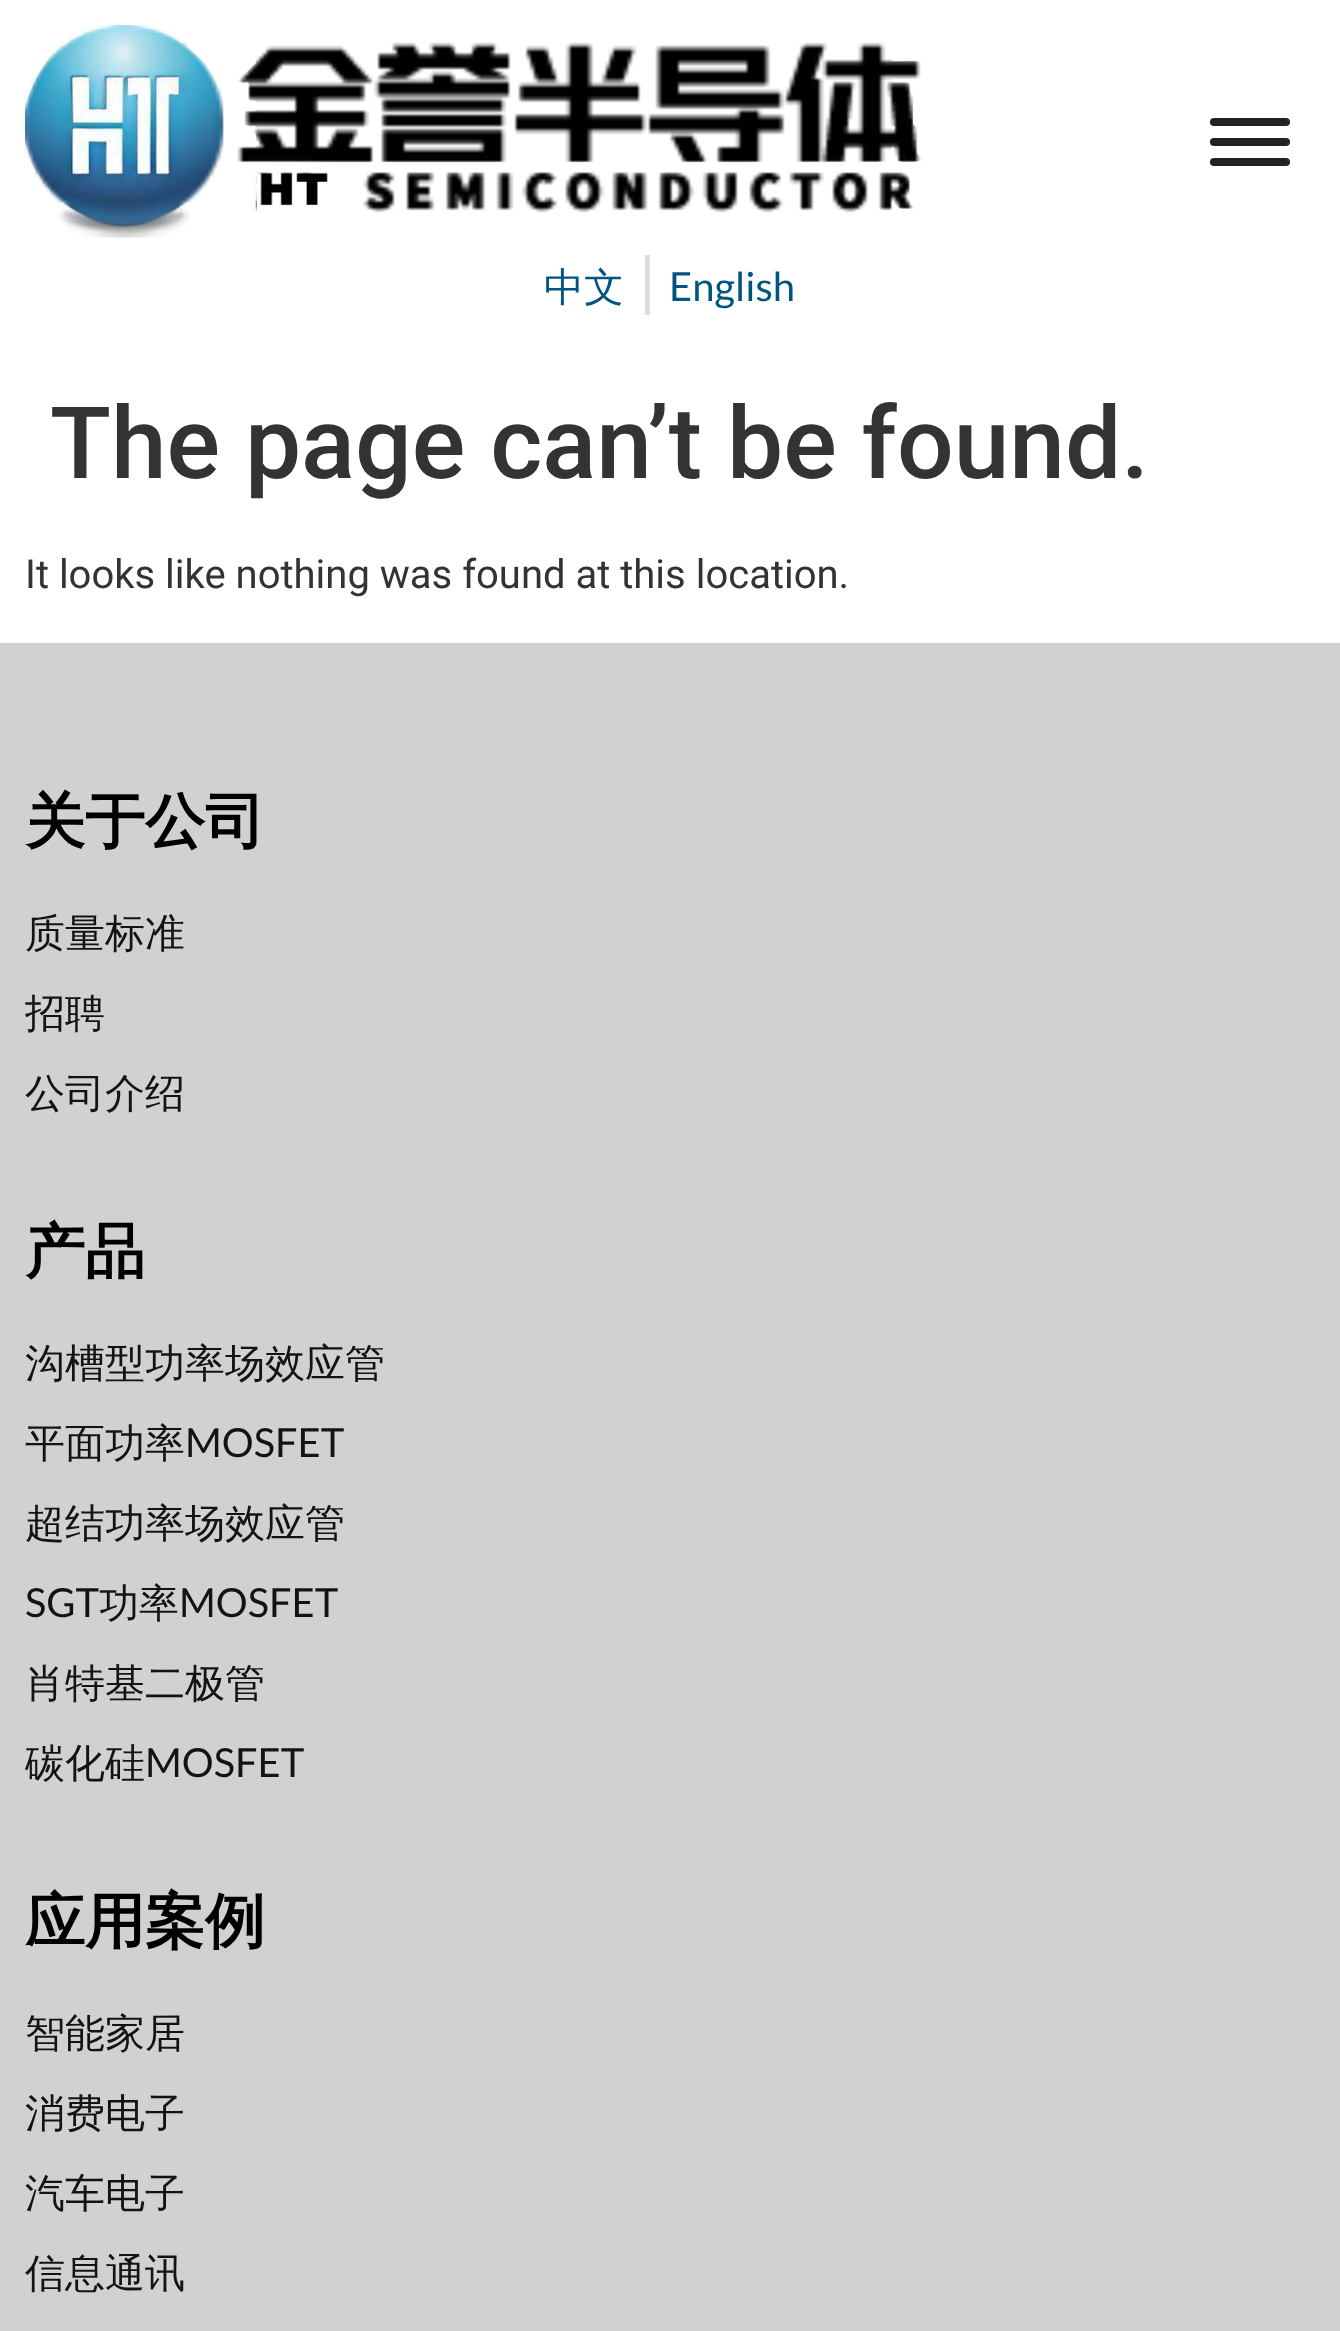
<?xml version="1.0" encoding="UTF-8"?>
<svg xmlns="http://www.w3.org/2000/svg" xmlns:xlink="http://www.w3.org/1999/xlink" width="1340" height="2331">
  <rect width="100%" height="100%" fill="#ffffff" />
  <image x="25" y="25" width="896" height="213" xlink:href="image1.png" />
  <rect x="1210" y="118" width="80" height="8" rx="4" fill="#222222" />
  <rect x="1210" y="138" width="80" height="8" rx="4" fill="#222222" />
  <rect x="1210" y="158" width="80" height="8" rx="4" fill="#222222" />
  <rect x="645" y="255" width="5" height="60" fill="#dddddd" />
  <rect y="643" width="1340" height="1688" fill="#d1d1d1" />
  <text x="544" y="301" style="font-family: WenQuanYi Zen Hei; font-size: 40px; font-weight: 500; fill: #005480">中文</text>
  <text x="669" y="301" style="font-family: Lato; font-size: 40px; fill: #005480">English</text>
  <text x="50" y="478" style="font-family: Roboto; font-size: 100px; font-weight: 500; fill: #333333">The page can’t be found.</text>
  <text x="25" y="588" style="font-family: Roboto; font-size: 40px; fill: #333333">It looks like nothing was found at this location.</text>
  <text x="25" y="842" style="font-family: WenQuanYi Zen Hei; font-size: 60px; font-weight: bold; fill: #000000">关于公司</text>
  <text x="25" y="947" style="font-family: WenQuanYi Zen Hei; font-size: 40px; font-weight: 500; fill: #131313">质量标准</text>
  <text x="25" y="1027" style="font-family: WenQuanYi Zen Hei; font-size: 40px; font-weight: 500; fill: #131313">招聘</text>
  <text x="25" y="1107" style="font-family: WenQuanYi Zen Hei; font-size: 40px; font-weight: 500; fill: #131313">公司介绍</text>
  <text x="25" y="1272" style="font-family: WenQuanYi Zen Hei; font-size: 60px; font-weight: bold; fill: #000000">产品</text>
  <text x="25" y="1377" style="font-family: WenQuanYi Zen Hei; font-size: 40px; font-weight: 500; fill: #131313">沟槽型功率场效应管</text>
  <text x="25" y="1457" style="font-family: WenQuanYi Zen Hei; font-size: 40px; font-weight: 500; fill: #131313">平面功率</text>
  <text x="185" y="1457" style="font-family: Lato; font-size: 40px; fill: #131313">MOSFET</text>
  <text x="25" y="1537" style="font-family: WenQuanYi Zen Hei; font-size: 40px; font-weight: 500; fill: #131313">超结功率场效应管</text>
  <text x="25" y="1617" style="font-family: Lato; font-size: 40px; fill: #131313">SGT</text>
  <text x="99" y="1617" style="font-family: WenQuanYi Zen Hei; font-size: 40px; font-weight: 500; fill: #131313">功率</text>
  <text x="179" y="1617" style="font-family: Lato; font-size: 40px; fill: #131313">MOSFET</text>
  <text x="25" y="1697" style="font-family: WenQuanYi Zen Hei; font-size: 40px; font-weight: 500; fill: #131313">肖特基二极管</text>
  <text x="25" y="1777" style="font-family: WenQuanYi Zen Hei; font-size: 40px; font-weight: 500; fill: #131313">碳化硅</text>
  <text x="145" y="1777" style="font-family: Lato; font-size: 40px; fill: #131313">MOSFET</text>
  <text x="25" y="1942" style="font-family: WenQuanYi Zen Hei; font-size: 60px; font-weight: bold; fill: #000000">应用案例</text>
  <text x="25" y="2047" style="font-family: WenQuanYi Zen Hei; font-size: 40px; font-weight: 500; fill: #131313">智能家居</text>
  <text x="25" y="2127" style="font-family: WenQuanYi Zen Hei; font-size: 40px; font-weight: 500; fill: #131313">消费电子</text>
  <text x="25" y="2207" style="font-family: WenQuanYi Zen Hei; font-size: 40px; font-weight: 500; fill: #131313">汽车电子</text>
  <text x="25" y="2287" style="font-family: WenQuanYi Zen Hei; font-size: 40px; font-weight: 500; fill: #131313">信息通讯</text>
</svg>
